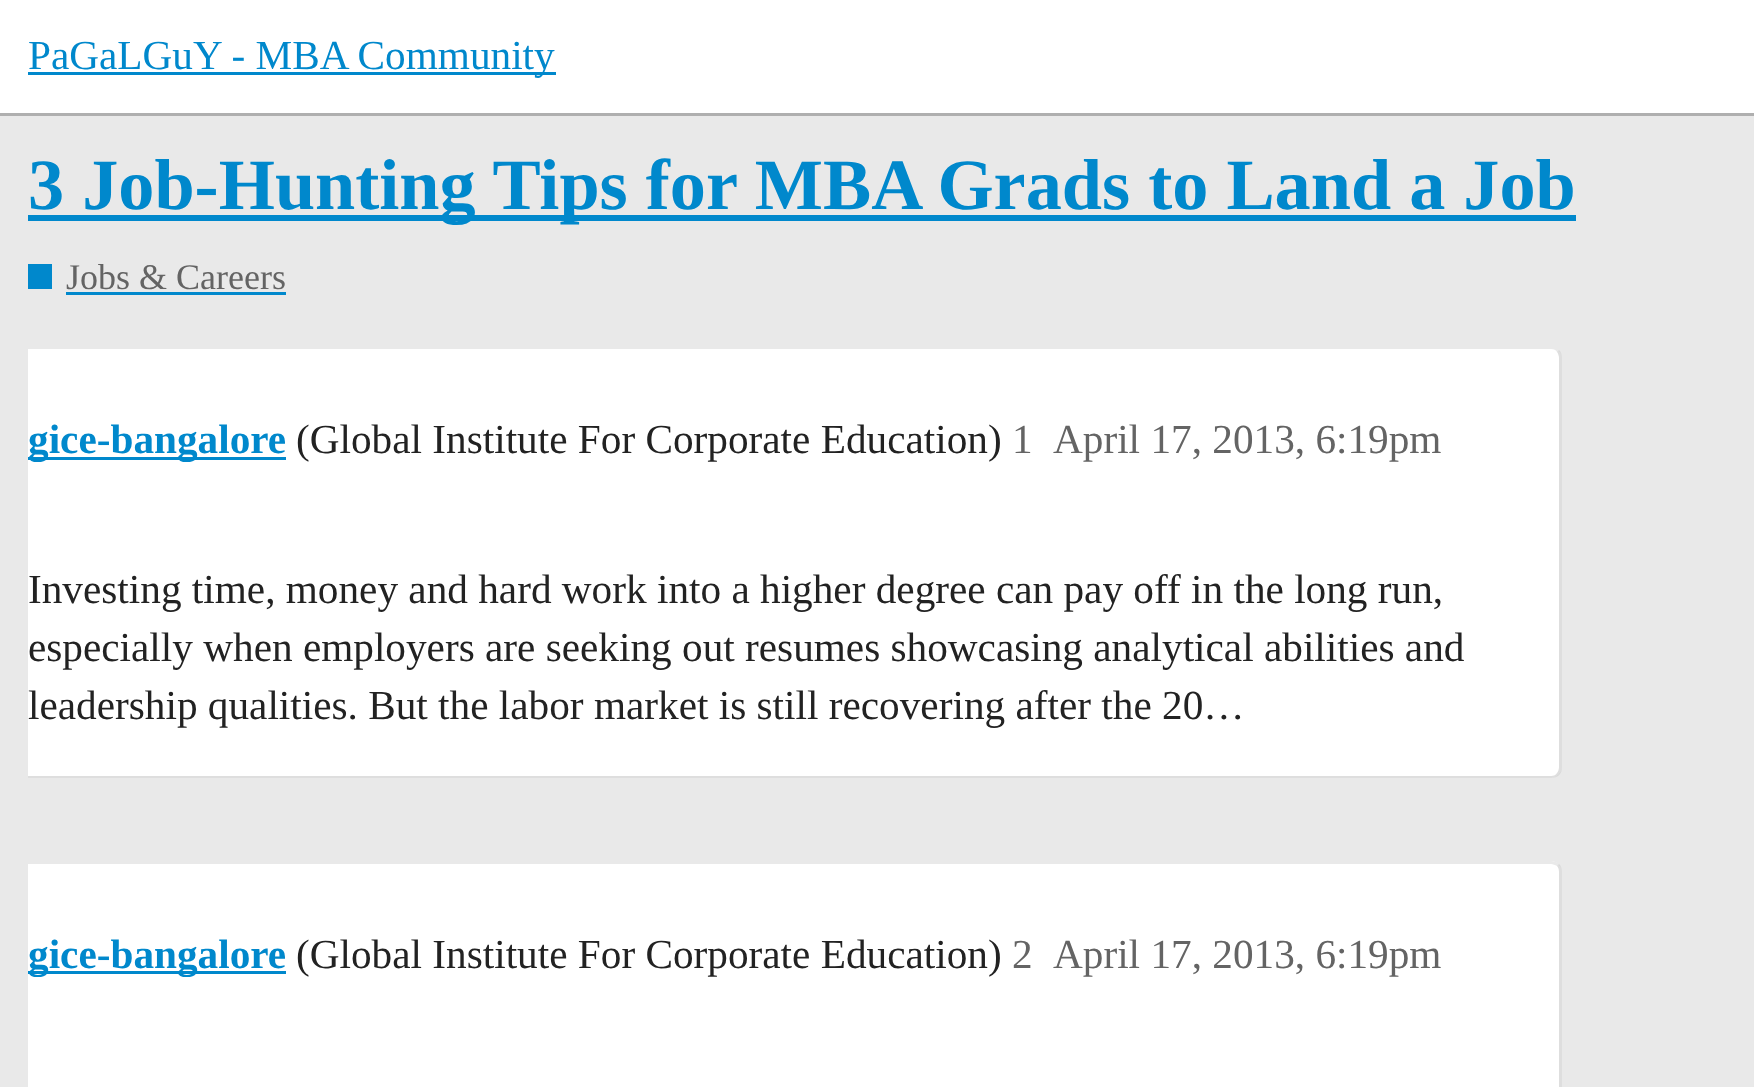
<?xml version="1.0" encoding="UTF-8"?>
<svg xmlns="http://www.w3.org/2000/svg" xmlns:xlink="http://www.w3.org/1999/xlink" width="1754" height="1087">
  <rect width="100%" height="100%" fill="#e9e9e9" />
  <rect width="1754" height="113" fill="#ffffff" />
  <rect y="113" width="1754" height="3" fill="#afafaf" />
  <rect x="28" y="72" width="528" height="3" fill="#0088cc" />
  <rect x="28" y="215" width="1548" height="6" fill="#0088cc" />
  <rect x="28" y="264" width="24" height="25" fill="#0088cc" />
  <rect x="66" y="292" width="220" height="3" fill="#0088cc" />
  <path d="M 28 347 h 1523 c 6 0 11 5 11 11 v 409 c 0 6 -5 11 -11 11 h -1523 z" fill="#ffffff" />
  <path d="M 28 349 v -3 h 1526 c 2 1 4 2 5 4 l -2 2 c -1 -2 -3 -3 -6 -3 z" fill="#e9e9e9" />
  <path d="M 1557 773 c 1 -1 2 -4 2 -6 v -409 c 0 -2 -1 -5 -2 -6 l 2 -2 c 2 2 3 5 3 8 v 409 c 0 3 -1 6 -3 8 z" fill="#222222" fill-opacity="0.15" />
  <path d="M 1559 775 l -2 -2 c -1 2 -3 3 -6 3 h -1523 v 2 h 1523 c 3 0 6 -1 8 -3 z" fill="#222222" fill-opacity="0.15" />
  <rect x="28" y="457" width="258" height="3" fill="#0088cc" />
  <path d="M 28 861 h 1523 c 6 0 11 5 11 11 v 215 c 0 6 -5 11 -11 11 h -1523 z" fill="#ffffff" />
  <path d="M 28 861 h 1523 c 3 0 6 1 8 3 l -2 2 c -2 -1 -4 -2 -6 -2 h -1523 z" fill="#e9e9e9" />
  <path d="M 1559 864 c 2 2 3 5 3 8 v 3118 c 0 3 -1 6 -3 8 l -2 -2 c 1 -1 2 -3 2 -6 v -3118 c 0 -3 -1 -5 -2 -6 z" fill="#222222" fill-opacity="0.15" />
  <rect x="28" y="971" width="258" height="3" fill="#0088cc" />
  <text x="28" y="69" style="font-family: Liberation Serif; font-size: 41.25px; fill: #0088cc">PaGaLGuY - MBA Community</text>
  <text x="28" y="209" style="font-family: Liberation Serif; font-size: 72.25px; font-weight: bold; fill: #0088cc">3 Job-Hunting Tips for MBA Grads to Land a Job</text>
  <text x="66" y="289" style="font-family: Liberation Serif; font-size: 36px; fill: #646464">Jobs &amp; Careers</text>
  <text x="28" y="453" style="font-family: Liberation Serif; font-size: 41.25px; font-weight: bold; fill: #0088cc">gice-bangalore</text>
  <text x="296" y="453" style="font-family: Liberation Serif; font-size: 41.25px; fill: #222222">(Global Institute For Corporate Education)</text>
  <text x="1012" y="453" style="font-family: Liberation Serif; font-size: 41.25px; fill: #646464">1</text>
  <text x="1053" y="453" style="font-family: Liberation Serif; font-size: 41.25px; fill: #646464">April 17, 2013, 6:19pm</text>
  <text x="28" y="603" style="font-family: Liberation Serif; font-size: 41.25px; fill: #222222">Investing time, money and hard work into a higher degree can pay off in the long run,</text>
  <text x="28" y="661" style="font-family: Liberation Serif; font-size: 41.25px; fill: #222222">especially when employers are seeking out resumes showcasing analytical abilities and</text>
  <text x="28" y="719" style="font-family: Liberation Serif; font-size: 41.25px; fill: #222222">leadership qualities. But the labor market is still recovering after the 20…</text>
  <text x="28" y="968" style="font-family: Liberation Serif; font-size: 41.25px; font-weight: bold; fill: #0088cc">gice-bangalore</text>
  <text x="296" y="968" style="font-family: Liberation Serif; font-size: 41.25px; fill: #222222">(Global Institute For Corporate Education)</text>
  <text x="1012" y="968" style="font-family: Liberation Serif; font-size: 41.25px; fill: #646464">2</text>
  <text x="1053" y="968" style="font-family: Liberation Serif; font-size: 41.25px; fill: #646464">April 17, 2013, 6:19pm</text>
</svg>
